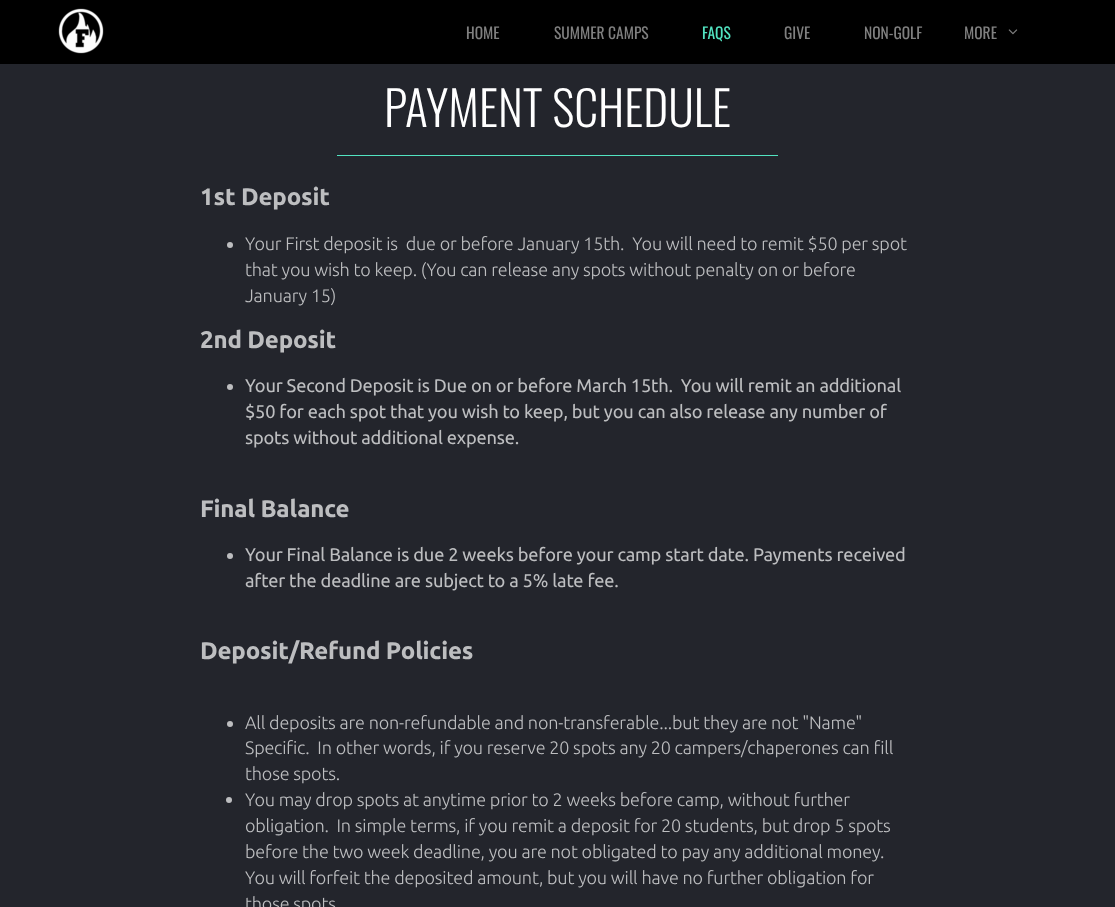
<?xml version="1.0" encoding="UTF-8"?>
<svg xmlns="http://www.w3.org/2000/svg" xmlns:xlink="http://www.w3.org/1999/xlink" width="1115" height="907">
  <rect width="100%" height="100%" fill="#23252c" />
  <rect width="1115" height="64" fill="#000000" />
  <image x="58" y="8" width="46" height="46" xlink:href="image1.png" />
  <image x="1008" y="29" width="10" height="6" xlink:href="image2.png" />
  <rect x="337" y="155" width="441" height="1" fill="#52e3c1" />
  <circle cx="230" cy="245" r="3" fill="#bdbec0" />
  <circle cx="230" cy="387" r="3" fill="#bdbec0" />
  <circle cx="230" cy="556" r="3" fill="#bdbec0" />
  <circle cx="230" cy="724" r="3" fill="#bdbec0" />
  <circle cx="229" cy="800" r="3" fill="#bdbec0" />
  <text x="466" y="39" style="font-family: Oswald; font-size: 15.5px; fill: #808080">HOME</text>
  <text x="554" y="39" style="font-family: Oswald; font-size: 15.5px; fill: #808080">SUMMER CAMPS</text>
  <text x="702" y="39" style="font-family: Oswald; font-size: 15.5px; fill: #52e3c1">FAQS</text>
  <text x="784" y="39" style="font-family: Oswald; font-size: 15.5px; fill: #808080">GIVE</text>
  <text x="864" y="39" style="font-family: Oswald; font-size: 15.5px; fill: #808080">NON-GOLF</text>
  <text x="964" y="39" style="font-family: Oswald; font-size: 15.5px; fill: #808080">MORE</text>
  <text x="384" y="127" style="font-family: Oswald; font-size: 47.75px; font-weight: 300; fill: #ffffff">PAYMENT SCHEDULE</text>
  <text x="200" y="205" style="font-family: Ubuntu; font-size: 24px; font-weight: bold; letter-spacing: -0.18px; fill: #bdbec0">1st Deposit</text>
  <text x="245" y="250" style="font-family: Ubuntu; font-size: 18px; font-weight: 300; letter-spacing: -0.18px; fill: #bdbec0" xml:space="preserve">Your First deposit is  due or before January 15th.  You will need to remit $50 per spot</text>
  <text x="245" y="276" style="font-family: Ubuntu; font-size: 18px; font-weight: 300; letter-spacing: -0.18px; fill: #bdbec0">that you wish to keep. (You can release any spots without penalty on or before</text>
  <text x="245" y="302" style="font-family: Ubuntu; font-size: 18px; font-weight: 300; letter-spacing: -0.18px; fill: #bdbec0">January 15)</text>
  <text x="200" y="348" style="font-family: Ubuntu; font-size: 24px; font-weight: bold; letter-spacing: -0.18px; fill: #bdbec0">2nd Deposit</text>
  <text x="245" y="392" style="font-family: Ubuntu; font-size: 18.25px; letter-spacing: -0.18px; fill: #bdbec0" xml:space="preserve">Your Second Deposit is Due on or before March 15th.  You will remit an additional</text>
  <text x="245" y="418" style="font-family: Ubuntu; font-size: 18.25px; letter-spacing: -0.18px; fill: #bdbec0">$50 for each spot that you wish to keep, but you can also release any number of</text>
  <text x="245" y="444" style="font-family: Ubuntu; font-size: 18.25px; letter-spacing: -0.18px; fill: #bdbec0">spots without additional expense.</text>
  <text x="200" y="517" style="font-family: Ubuntu; font-size: 24px; font-weight: bold; letter-spacing: -0.18px; fill: #bdbec0">Final Balance</text>
  <text x="245" y="561" style="font-family: Ubuntu; font-size: 18.25px; letter-spacing: -0.18px; fill: #bdbec0">Your Final Balance is due 2 weeks before your camp start date. Payments received</text>
  <text x="245" y="587" style="font-family: Ubuntu; font-size: 18.25px; letter-spacing: -0.18px; fill: #bdbec0">after the deadline are subject to a 5% late fee.</text>
  <text x="200" y="659" style="font-family: Ubuntu; font-size: 24px; font-weight: bold; letter-spacing: -0.18px; fill: #bdbec0">Deposit/Refund Policies</text>
  <text x="245" y="729" style="font-family: Ubuntu; font-size: 18px; font-weight: 300; letter-spacing: -0.18px; fill: #bdbec0">All deposits are non-refundable and non-transferable...but they are not "Name"</text>
  <text x="245" y="754" style="font-family: Ubuntu; font-size: 18px; font-weight: 300; letter-spacing: -0.18px; fill: #bdbec0" xml:space="preserve">Specific.  In other words, if you reserve 20 spots any 20 campers/chaperones can fill</text>
  <text x="245" y="780" style="font-family: Ubuntu; font-size: 18px; font-weight: 300; letter-spacing: -0.18px; fill: #bdbec0">those spots.</text>
  <text x="245" y="806" style="font-family: Ubuntu; font-size: 18px; font-weight: 300; letter-spacing: -0.18px; fill: #bdbec0">You may drop spots at anytime prior to 2 weeks before camp, without further</text>
  <text x="245" y="832" style="font-family: Ubuntu; font-size: 18px; font-weight: 300; letter-spacing: -0.18px; fill: #bdbec0" xml:space="preserve">obligation.  In simple terms, if you remit a deposit for 20 students, but drop 5 spots</text>
  <text x="245" y="858" style="font-family: Ubuntu; font-size: 18px; font-weight: 300; letter-spacing: -0.18px; fill: #bdbec0">before the two week deadline, you are not obligated to pay any additional money.</text>
  <text x="245" y="884" style="font-family: Ubuntu; font-size: 18px; font-weight: 300; letter-spacing: -0.18px; fill: #bdbec0">You will forfeit the deposited amount, but you will have no further obligation for</text>
  <text x="245" y="910" style="font-family: Ubuntu; font-size: 18px; font-weight: 300; letter-spacing: -0.18px; fill: #bdbec0">those spots</text>
</svg>
